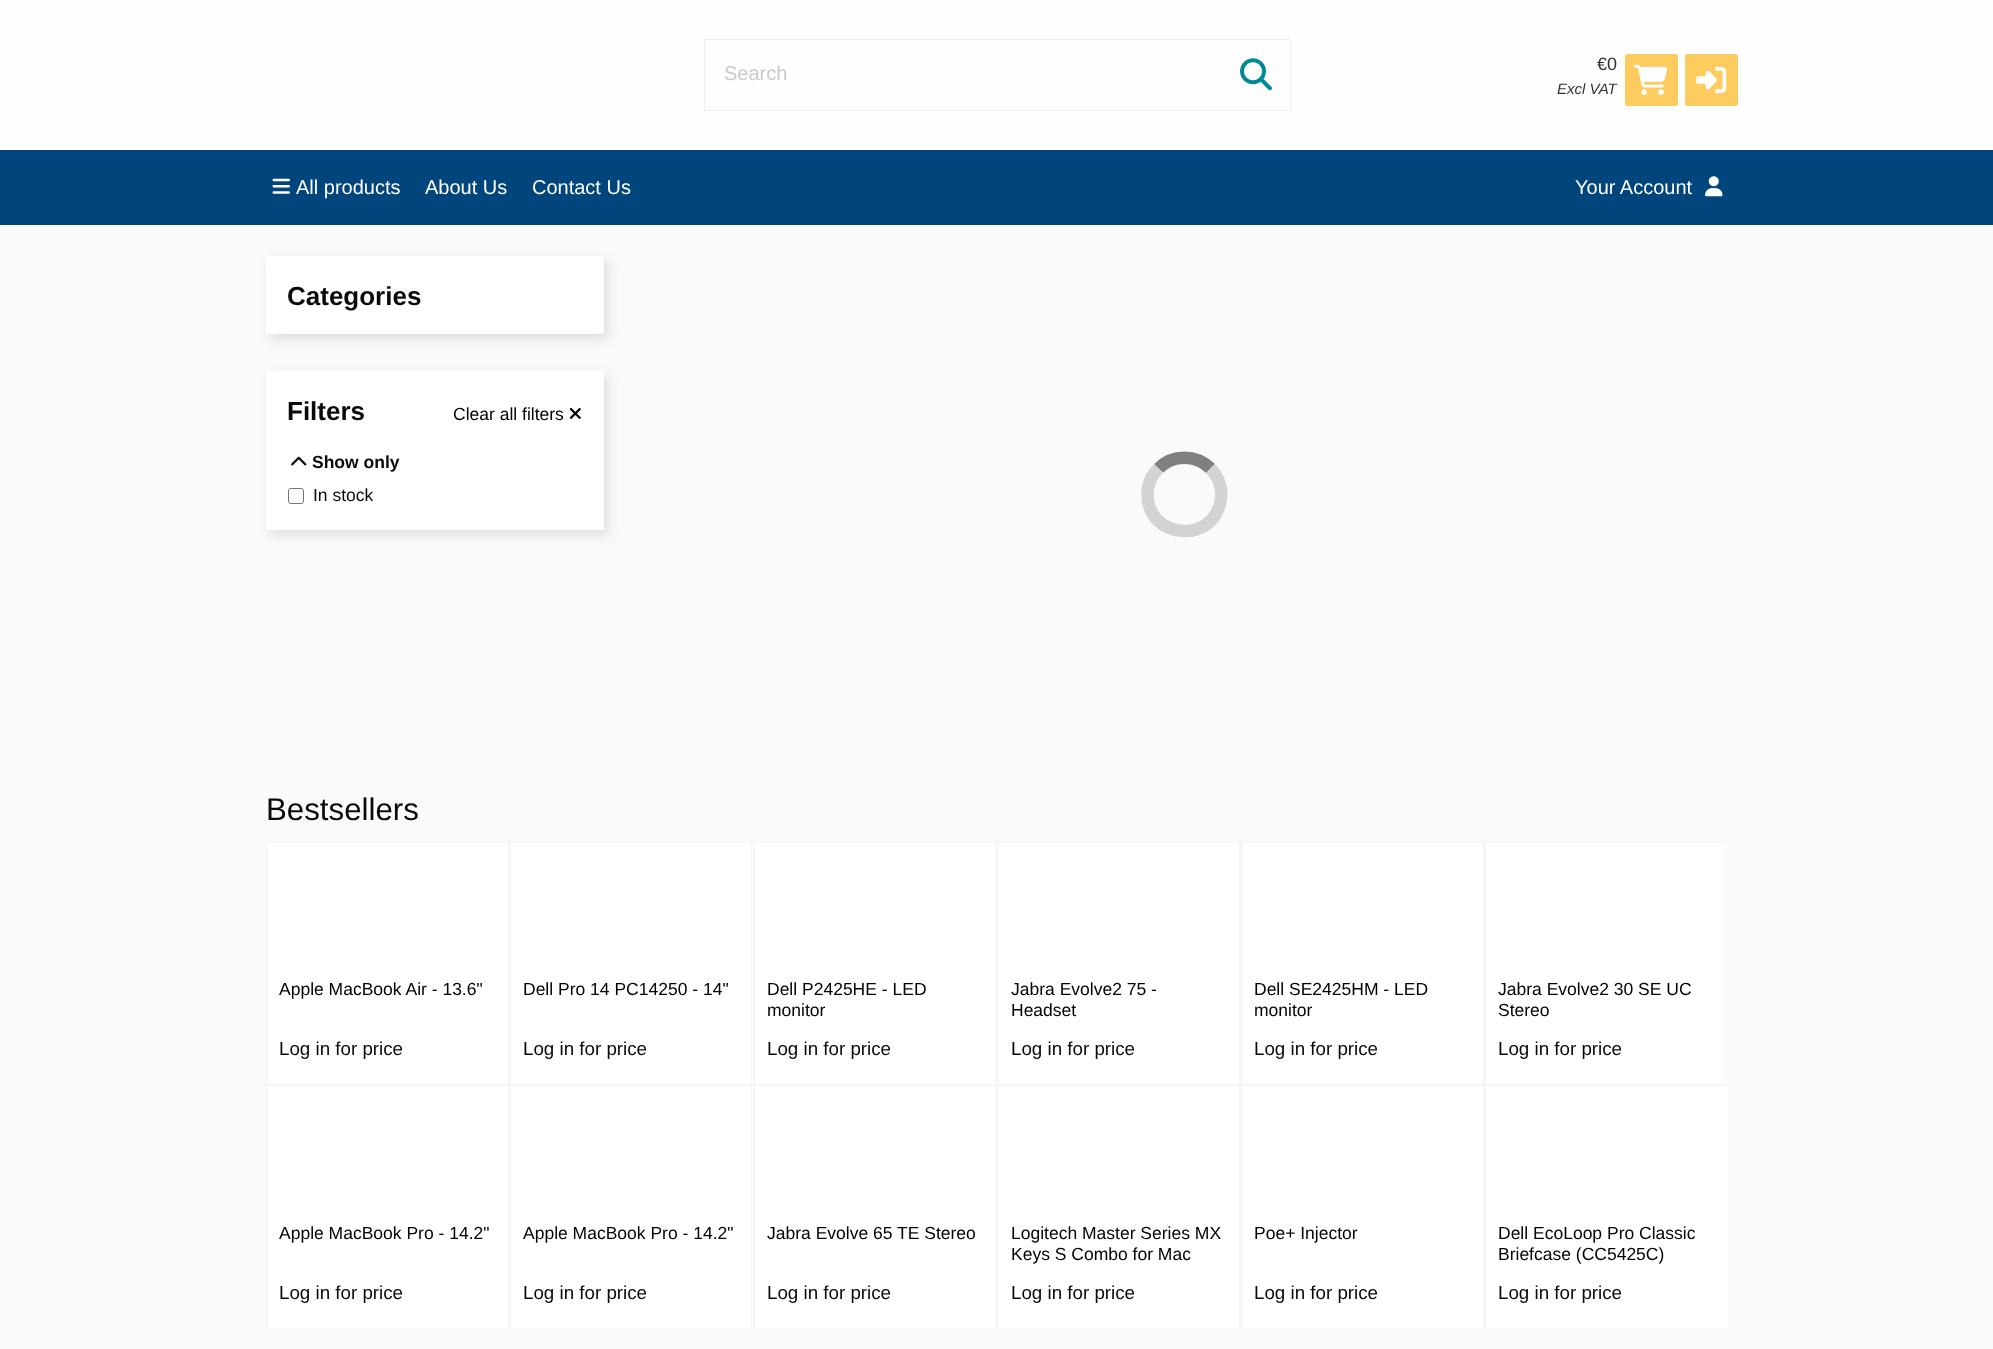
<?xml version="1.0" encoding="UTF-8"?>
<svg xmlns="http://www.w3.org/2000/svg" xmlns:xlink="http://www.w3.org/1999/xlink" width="1993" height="1349">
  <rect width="100%" height="100%" fill="#fafafa" />
  <rect width="1993" height="150" fill="#fefefe" />
  <rect x="704.5" y="39.5" width="586" height="71" fill="none" stroke="#eeeeee" />
  <image x="1240" y="58" width="32" height="33" xlink:href="image1.png" />
  <rect x="1625" y="54" width="53" height="52" rx="2.5" fill="#fecb5e" />
  <image x="1633" y="65" width="35" height="30" xlink:href="image2.png" />
  <rect x="1685" y="54" width="53" height="52" rx="2.5" fill="#fecb5e" />
  <image x="1696" y="66" width="31" height="28" xlink:href="image3.png" />
  <rect y="150" width="1993" height="75" fill="#00457b" />
  <image x="272" y="178" width="18" height="16" xlink:href="image4.png" />
  <image x="1705" y="176" width="18" height="21" xlink:href="image5.png" />
  <rect x="270" y="261" width="338" height="78" fill="#dddddd" filter="blur(5.5px)" />
  <rect x="266" y="256" width="338" height="78" fill="#ffffff" />
  <rect x="270" y="376" width="338" height="159" fill="#dddddd" filter="blur(5.5px)" />
  <rect x="266" y="371" width="338" height="159" fill="#ffffff" />
  <image x="569" y="408" width="12" height="11" xlink:href="image6.png" />
  <image x="291" y="456" width="16" height="10" xlink:href="image7.png" />
  <rect x="288.5" y="488.5" width="15" height="15" rx="2" fill="none" stroke="#767676" />
  <path d="M 1158.5 468.5 c 14 -14.5 37.5 -14.5 52 0" fill="none" stroke="#808080" stroke-width="12.5" />
  <path d="M 1210.5 468.5 c 8.5 8.5 12.5 21 10 33 c -8.5 43.5 -73 37 -73 -7 c 0 -10 4 -19.5 11 -26" fill="none" stroke="#d3d3d3" stroke-width="12.5" />
  <rect x="266.5" y="841.5" width="243" height="243" fill="none" stroke="#f5f5f5" />
  <rect x="268" y="843" width="240" height="241" fill="#ffffff" />
  <rect x="508" y="843" width="1" height="241" fill="#f5f5f5" />
  <rect x="510.5" y="841.5" width="243" height="243" fill="none" stroke="#f5f5f5" />
  <rect x="511" y="843" width="242" height="241" fill="#ffffff" />
  <rect x="751" y="843" width="1" height="241" fill="#f5f5f5" />
  <rect x="754.5" y="841.5" width="243" height="243" fill="none" stroke="#f5f5f5" />
  <rect x="755" y="843" width="240" height="241" fill="#ffffff" />
  <rect x="995" y="843" width="1" height="241" fill="#f5f5f5" />
  <rect x="998.5" y="841.5" width="242" height="243" fill="none" stroke="#f5f5f5" />
  <rect x="999" y="843" width="240" height="241" fill="#ffffff" />
  <rect x="1239" y="843" width="1" height="241" fill="#f5f5f5" />
  <rect x="1241.5" y="841.5" width="243" height="243" fill="none" stroke="#f5f5f5" />
  <rect x="1243" y="843" width="240" height="241" fill="#ffffff" />
  <rect x="1483" y="843" width="1" height="241" fill="#f5f5f5" />
  <rect x="1485.5" y="841.5" width="243" height="243" fill="none" stroke="#f5f5f5" />
  <rect x="1486" y="843" width="242" height="241" fill="#ffffff" />
  <rect x="1726" y="843" width="1" height="241" fill="#f5f5f5" />
  <rect x="266.5" y="1085.5" width="243" height="243" fill="none" stroke="#f5f5f5" />
  <rect x="268" y="1086" width="240" height="242" fill="#ffffff" />
  <rect x="508" y="1086" width="1" height="242" fill="#f5f5f5" />
  <rect x="510.5" y="1085.5" width="243" height="243" fill="none" stroke="#f5f5f5" />
  <rect x="511" y="1086" width="242" height="242" fill="#ffffff" />
  <rect x="751" y="1086" width="1" height="242" fill="#f5f5f5" />
  <rect x="754.5" y="1085.5" width="243" height="243" fill="none" stroke="#f5f5f5" />
  <rect x="755" y="1086" width="240" height="242" fill="#ffffff" />
  <rect x="995" y="1086" width="1" height="242" fill="#f5f5f5" />
  <rect x="998.5" y="1085.5" width="242" height="243" fill="none" stroke="#f5f5f5" />
  <rect x="999" y="1086" width="240" height="242" fill="#ffffff" />
  <rect x="1239" y="1086" width="1" height="242" fill="#f5f5f5" />
  <rect x="1241.5" y="1085.5" width="243" height="243" fill="none" stroke="#f5f5f5" />
  <rect x="1243" y="1086" width="240" height="242" fill="#ffffff" />
  <rect x="1483" y="1086" width="1" height="242" fill="#f5f5f5" />
  <rect x="1485.5" y="1085.5" width="243" height="243" fill="none" stroke="#f5f5f5" />
  <rect x="1486" y="1086" width="242" height="242" fill="#ffffff" />
  <text x="724" y="80" style="font-family: Liberation Sans; font-size: 20px; fill: #cacaca">Search</text>
  <text x="1597" y="70" style="font-family: Liberation Sans; font-size: 18px; fill: #333333">€0</text>
  <text x="1557" y="94" style="font-family: Liberation Sans; font-size: 15px; font-style: italic; fill: #333333">Excl VAT</text>
  <text x="296" y="194" style="font-family: Liberation Sans; font-size: 20px; fill: #ffffff">All products</text>
  <text x="425" y="194" style="font-family: Liberation Sans; font-size: 20px; fill: #ffffff">About Us</text>
  <text x="532" y="194" style="font-family: Liberation Sans; font-size: 20px; fill: #ffffff">Contact Us</text>
  <text x="1575" y="194" style="font-family: Liberation Sans; font-size: 20px; fill: #ffffff">Your Account</text>
  <text x="287" y="305" style="font-family: Liberation Sans; font-size: 26px; font-weight: bold; fill: #0a0a0a">Categories</text>
  <text x="287" y="420" style="font-family: Liberation Sans; font-size: 26px; font-weight: bold; fill: #0a0a0a">Filters</text>
  <text x="453" y="420" style="font-family: Liberation Sans; font-size: 17.5px; fill: #000000">Clear all filters</text>
  <text x="312" y="468" style="font-family: Liberation Sans; font-size: 17.5px; font-weight: bold; fill: #0a0a0a">Show only</text>
  <text x="313" y="501" style="font-family: Liberation Sans; font-size: 17.5px; fill: #0a0a0a">In stock</text>
  <text x="266" y="820" style="font-family: Liberation Sans; font-size: 31.25px; fill: #0a0a0a">Bestsellers</text>
  <text x="279" y="995" style="font-family: Liberation Sans; font-size: 17.5px; fill: #000000">Apple MacBook Air - 13.6"</text>
  <text x="279" y="1055" style="font-family: Liberation Sans; font-size: 18.75px; fill: #0a0a0a">Log in for price</text>
  <text x="523" y="995" style="font-family: Liberation Sans; font-size: 17.5px; fill: #000000">Dell Pro 14 PC14250 - 14"</text>
  <text x="523" y="1055" style="font-family: Liberation Sans; font-size: 18.75px; fill: #0a0a0a">Log in for price</text>
  <text x="767" y="995" style="font-family: Liberation Sans; font-size: 17.5px; fill: #000000">Dell P2425HE - LED</text>
  <text x="767" y="1016" style="font-family: Liberation Sans; font-size: 17.5px; fill: #000000">monitor</text>
  <text x="767" y="1055" style="font-family: Liberation Sans; font-size: 18.75px; fill: #0a0a0a">Log in for price</text>
  <text x="1011" y="995" style="font-family: Liberation Sans; font-size: 17.5px; fill: #000000">Jabra Evolve2 75 -</text>
  <text x="1011" y="1016" style="font-family: Liberation Sans; font-size: 17.5px; fill: #000000">Headset</text>
  <text x="1011" y="1055" style="font-family: Liberation Sans; font-size: 18.75px; fill: #0a0a0a">Log in for price</text>
  <text x="1254" y="995" style="font-family: Liberation Sans; font-size: 17.5px; fill: #000000">Dell SE2425HM - LED</text>
  <text x="1254" y="1016" style="font-family: Liberation Sans; font-size: 17.5px; fill: #000000">monitor</text>
  <text x="1254" y="1055" style="font-family: Liberation Sans; font-size: 18.75px; fill: #0a0a0a">Log in for price</text>
  <text x="1498" y="995" style="font-family: Liberation Sans; font-size: 17.5px; fill: #000000">Jabra Evolve2 30 SE UC</text>
  <text x="1498" y="1016" style="font-family: Liberation Sans; font-size: 17.5px; fill: #000000">Stereo</text>
  <text x="1498" y="1055" style="font-family: Liberation Sans; font-size: 18.75px; fill: #0a0a0a">Log in for price</text>
  <text x="279" y="1239" style="font-family: Liberation Sans; font-size: 17.5px; fill: #000000">Apple MacBook Pro - 14.2"</text>
  <text x="279" y="1299" style="font-family: Liberation Sans; font-size: 18.75px; fill: #0a0a0a">Log in for price</text>
  <text x="523" y="1239" style="font-family: Liberation Sans; font-size: 17.5px; fill: #000000">Apple MacBook Pro - 14.2"</text>
  <text x="523" y="1299" style="font-family: Liberation Sans; font-size: 18.75px; fill: #0a0a0a">Log in for price</text>
  <text x="767" y="1239" style="font-family: Liberation Sans; font-size: 17.5px; fill: #000000">Jabra Evolve 65 TE Stereo</text>
  <text x="767" y="1299" style="font-family: Liberation Sans; font-size: 18.75px; fill: #0a0a0a">Log in for price</text>
  <text x="1011" y="1239" style="font-family: Liberation Sans; font-size: 17.5px; fill: #000000">Logitech Master Series MX</text>
  <text x="1011" y="1260" style="font-family: Liberation Sans; font-size: 17.5px; fill: #000000">Keys S Combo for Mac</text>
  <text x="1011" y="1299" style="font-family: Liberation Sans; font-size: 18.75px; fill: #0a0a0a">Log in for price</text>
  <text x="1254" y="1239" style="font-family: Liberation Sans; font-size: 17.5px; fill: #000000">Poe+ Injector</text>
  <text x="1254" y="1299" style="font-family: Liberation Sans; font-size: 18.75px; fill: #0a0a0a">Log in for price</text>
  <text x="1498" y="1239" style="font-family: Liberation Sans; font-size: 17.5px; fill: #000000">Dell EcoLoop Pro Classic</text>
  <text x="1498" y="1260" style="font-family: Liberation Sans; font-size: 17.5px; fill: #000000">Briefcase (CC5425C)</text>
  <text x="1498" y="1299" style="font-family: Liberation Sans; font-size: 18.75px; fill: #0a0a0a">Log in for price</text>
</svg>
